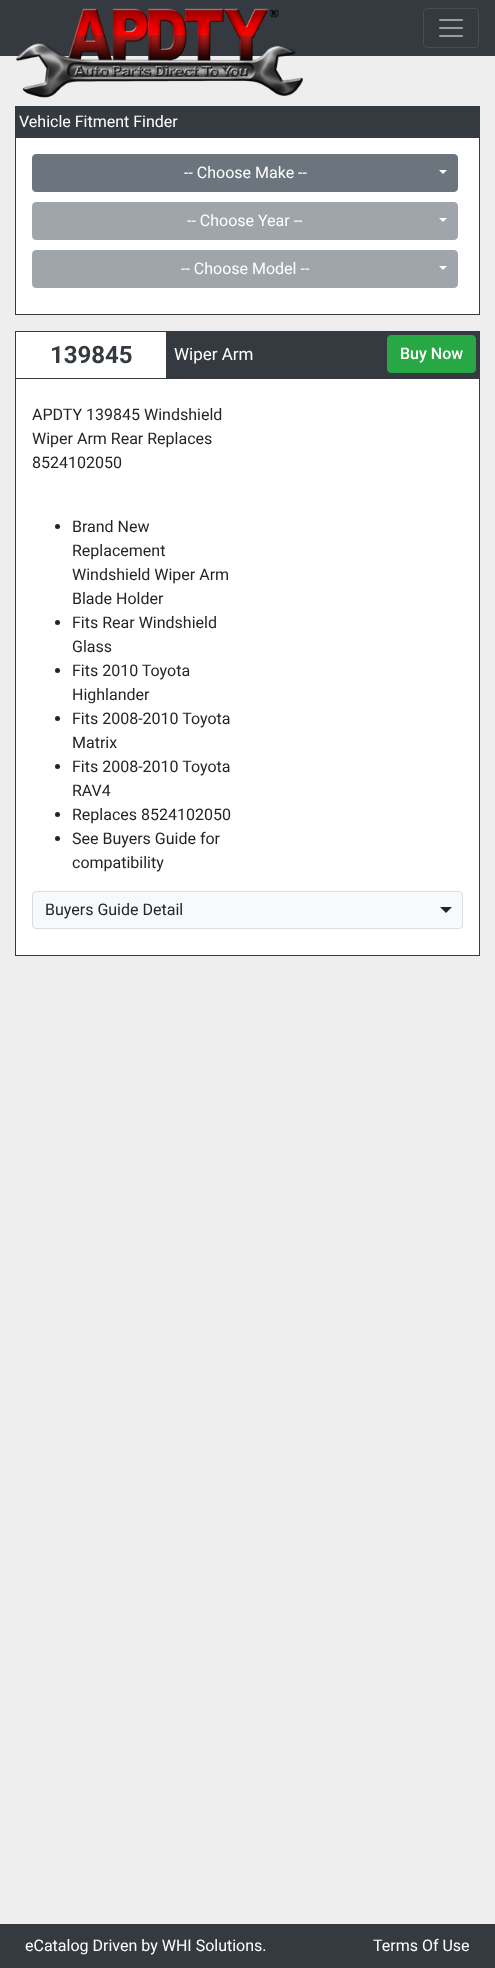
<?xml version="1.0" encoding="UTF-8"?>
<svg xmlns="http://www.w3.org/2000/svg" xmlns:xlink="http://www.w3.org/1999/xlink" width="495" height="1968">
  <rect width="100%" height="100%" fill="#eeeeee" />
  <rect width="495" height="56" fill="#343a40" />
  <image x="16" y="8" width="287" height="90" xlink:href="image1.png" />
  <rect x="423.5" y="8.5" width="55" height="39" rx="3.5" fill="none" stroke="#484e53" />
  <image x="439" y="19" width="24" height="18" xlink:href="image2.png" />
  <rect x="15.5" y="106.5" width="464" height="208" fill="none" stroke="#343a40" />
  <rect x="16" y="107" width="463" height="31" fill="#343a40" />
  <rect x="16" y="138" width="463" height="176" fill="#ffffff" />
  <rect x="32.5" y="154.5" width="425" height="37" rx="3.5" fill="#6c757d" stroke="#6c757d" />
  <path d="M 439 170 h 8 l -4 4 z" fill="#ffffff" />
  <rect x="32.5" y="202.5" width="425" height="37" rx="3.5" fill="#9fa5ab" stroke="#9fa5ab" />
  <path d="M 439 218 h 8 l -4 4 z" fill="#ffffff" />
  <rect x="32.5" y="250.5" width="425" height="37" rx="3.5" fill="#9fa5ab" stroke="#9fa5ab" />
  <path d="M 439 266 h 8 l -4 4 z" fill="#ffffff" />
  <rect x="15.5" y="331.5" width="464" height="624" fill="none" stroke="#343a40" />
  <rect x="16" y="332" width="463" height="47" fill="#343a40" />
  <rect x="16" y="332" width="150" height="46" fill="#ffffff" />
  <rect x="387.5" y="335.5" width="88" height="37" rx="3.5" fill="#28a745" stroke="#28a745" />
  <rect x="16" y="379" width="463" height="576" fill="#ffffff" />
  <circle cx="57.5" cy="526.5" r="2.5" fill="#212529" />
  <circle cx="57.5" cy="622.5" r="2.5" fill="#212529" />
  <circle cx="57.5" cy="670.5" r="2.5" fill="#212529" />
  <circle cx="57.5" cy="718.5" r="2.5" fill="#212529" />
  <circle cx="57.5" cy="766.5" r="2.5" fill="#212529" />
  <circle cx="57.5" cy="814.5" r="2.5" fill="#212529" />
  <circle cx="57.5" cy="838.5" r="2.5" fill="#212529" />
  <rect x="32.5" y="891.5" width="430" height="37" rx="3.5" fill="#f8f9fa" stroke="#dddddd" />
  <path d="M 440 907 h 12 l -6 6 z" fill="#212529" />
  <rect y="1924" width="495" height="44" fill="#343a40" />
  <text x="19" y="127" style="font-family: Roboto; font-size: 16px; fill: #ffffff">Vehicle Fitment Finder</text>
  <text x="184" y="178" style="font-family: Roboto; font-size: 16px; fill: #ffffff">-- Choose Make --</text>
  <text x="187" y="226" style="font-family: Roboto; font-size: 16px; fill: #ffffff">-- Choose Year --</text>
  <text x="181" y="274" style="font-family: Roboto; font-size: 16px; fill: #ffffff">-- Choose Model --</text>
  <text x="50" y="363" style="font-family: Roboto; font-size: 24px; font-weight: bold; fill: #343a40">139845</text>
  <text x="174" y="360" style="font-family: Roboto; font-size: 17px; fill: #ffffff">Wiper Arm</text>
  <text x="400" y="359" style="font-family: Roboto; font-size: 16px; font-weight: 500; fill: #ffffff">Buy Now</text>
  <text x="32" y="420" style="font-family: Roboto; font-size: 16px; fill: #212529">APDTY 139845 Windshield</text>
  <text x="32" y="444" style="font-family: Roboto; font-size: 16px; fill: #212529">Wiper Arm Rear Replaces</text>
  <text x="32" y="468" style="font-family: Roboto; font-size: 16px; fill: #212529">8524102050</text>
  <text x="72" y="532" style="font-family: Roboto; font-size: 16px; fill: #212529">Brand New</text>
  <text x="72" y="556" style="font-family: Roboto; font-size: 16px; fill: #212529">Replacement</text>
  <text x="72" y="580" style="font-family: Roboto; font-size: 16px; fill: #212529">Windshield Wiper Arm</text>
  <text x="72" y="604" style="font-family: Roboto; font-size: 16px; fill: #212529">Blade Holder</text>
  <text x="72" y="628" style="font-family: Roboto; font-size: 16px; fill: #212529">Fits Rear Windshield</text>
  <text x="72" y="652" style="font-family: Roboto; font-size: 16px; fill: #212529">Glass</text>
  <text x="72" y="676" style="font-family: Roboto; font-size: 16px; fill: #212529">Fits 2010 Toyota</text>
  <text x="72" y="700" style="font-family: Roboto; font-size: 16px; fill: #212529">Highlander</text>
  <text x="72" y="724" style="font-family: Roboto; font-size: 16px; fill: #212529">Fits 2008-2010 Toyota</text>
  <text x="72" y="748" style="font-family: Roboto; font-size: 16px; fill: #212529">Matrix</text>
  <text x="72" y="772" style="font-family: Roboto; font-size: 16px; fill: #212529">Fits 2008-2010 Toyota</text>
  <text x="72" y="796" style="font-family: Roboto; font-size: 16px; fill: #212529">RAV4</text>
  <text x="72" y="820" style="font-family: Roboto; font-size: 16px; fill: #212529">Replaces 8524102050</text>
  <text x="72" y="844" style="font-family: Roboto; font-size: 16px; fill: #212529">See Buyers Guide for</text>
  <text x="72" y="868" style="font-family: Roboto; font-size: 16px; fill: #212529">compatibility</text>
  <text x="45" y="915" style="font-family: Roboto; font-size: 16px; fill: #212529">Buyers Guide Detail</text>
  <text x="25" y="1951" style="font-family: Roboto; font-size: 16px; fill: #ffffff">eCatalog Driven by WHI Solutions.</text>
  <text x="373" y="1951" style="font-family: Roboto; font-size: 16px; fill: #ffffff">Terms Of Use</text>
</svg>
